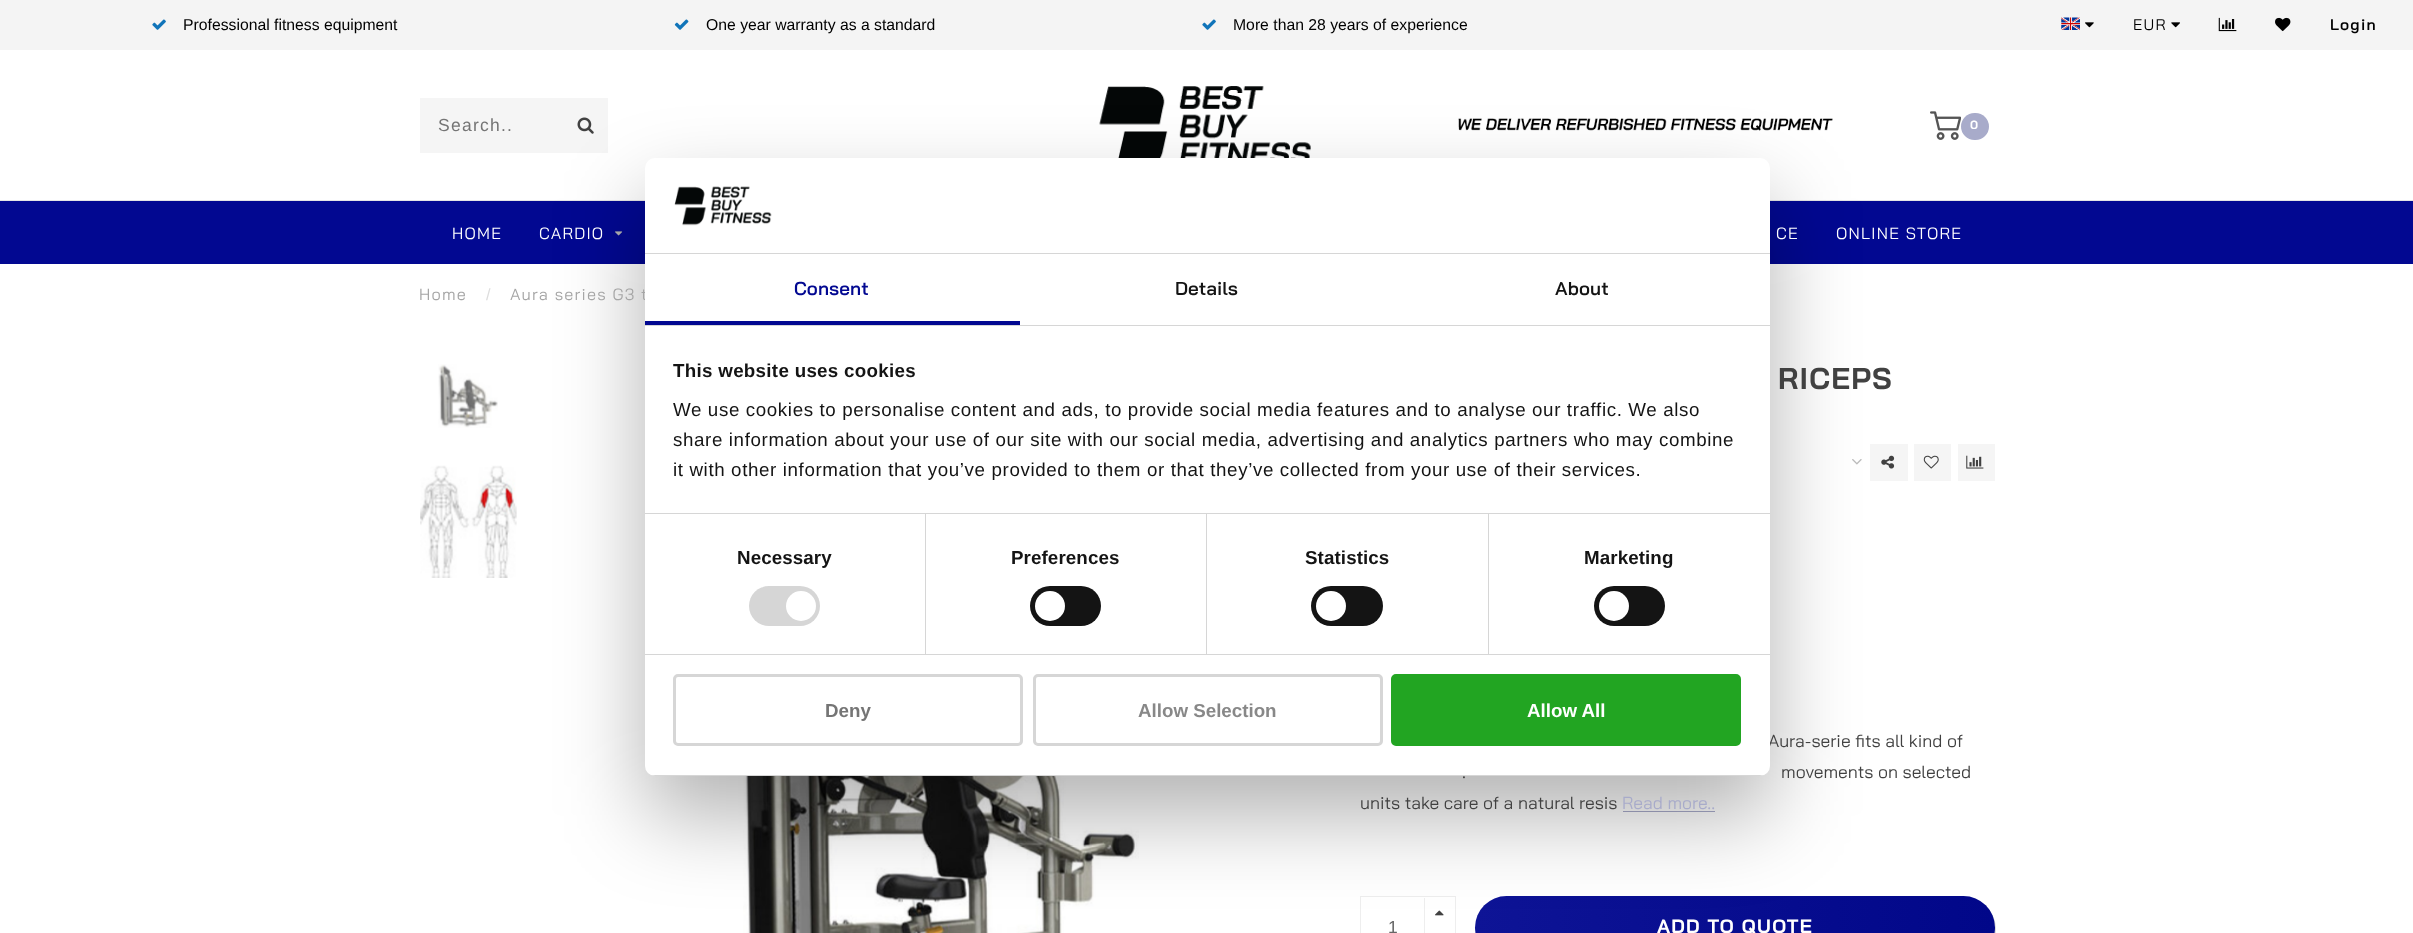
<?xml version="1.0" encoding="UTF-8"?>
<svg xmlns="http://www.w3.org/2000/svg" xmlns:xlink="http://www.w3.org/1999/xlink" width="2413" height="933">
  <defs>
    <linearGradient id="g1" gradientUnits="userSpaceOnUse" x1="1475" y1="928" x2="1995" y2="928"><stop offset="0" stop-color="#0e1496" /><stop offset="1" stop-color="#010789" /></linearGradient>
    <clipPath id="clip1"><rect x="645" y="158" width="1125" height="618" rx="10" /></clipPath>
  </defs>
  <rect width="100%" height="100%" fill="#ffffff" />
  <rect width="2413" height="50" fill="#f4f4f4" />
  <image x="152" y="19" width="14" height="11" xlink:href="image1.png" />
  <image x="674" y="19" width="15" height="11" xlink:href="image2.png" />
  <image x="1202" y="19" width="14" height="11" xlink:href="image1.png" />
  <image x="2061" y="17" width="19" height="13" xlink:href="image3.png" />
  <image x="2085" y="22" width="9" height="6" xlink:href="image4.png" />
  <image x="2171" y="22" width="9" height="6" xlink:href="image5.png" />
  <image x="2218" y="17" width="19" height="15" xlink:href="image6.png" />
  <image x="2275" y="17" width="16" height="15" xlink:href="image7.png" />
  <rect x="420" y="98" width="188" height="55" fill="#f5f5f5" />
  <image x="577" y="117" width="17" height="17" xlink:href="image8.png" />
  <image x="1099" y="86" width="212" height="72" xlink:href="image9.png" />
  <image x="1458" y="118" width="375" height="13" xlink:href="image10.png" />
  <image x="1930" y="111" width="31" height="29" xlink:href="image11.png" />
  <rect x="1961" y="113" width="28" height="27" rx="13.5" fill="#a8abca" />
  <rect y="201" width="2413" height="63" fill="#020891" />
  <rect y="200" width="2413" height="1" fill="#e5e5e5" />
  <image x="615" y="231" width="8" height="5" xlink:href="image12.png" />
  <image x="438" y="364" width="60" height="64" xlink:href="image13.png" />
  <image x="420" y="465" width="97" height="113" xlink:href="image14.png" />
  <image x="743" y="776" width="396" height="157" xlink:href="image15.png" />
  <image x="1852" y="459" width="10" height="6" xlink:href="image16.png" />
  <rect x="1870" y="444" width="38" height="37" fill="#f5f5f5" />
  <image x="1881" y="455" width="14" height="14" xlink:href="image17.png" />
  <rect x="1914" y="444" width="37" height="37" fill="#f5f5f5" />
  <image x="1923" y="455" width="16" height="14" xlink:href="image18.png" />
  <rect x="1958" y="444" width="37" height="37" fill="#f5f5f5" />
  <image x="1966" y="455" width="18" height="14" xlink:href="image19.png" />
  <rect x="1623" y="811" width="92" height="1" fill="#a8abca" />
  <rect x="1360.5" y="896.5" width="95" height="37" fill="none" stroke="#eeeeee" />
  <rect x="1424" y="898" width="1" height="31" fill="#eeeeee" />
  <image x="1435" y="910" width="9" height="6" xlink:href="image20.png" />
  <rect x="1424" y="926" width="1" height="3" fill="#ffffff" />
  <rect x="1424" y="926" width="1" height="7" fill="#eeeeee" />
  <rect x="1476" y="898" width="520" height="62" rx="31" fill="#000000" fill-opacity="0.15" filter="blur(0.5px)" />
  <rect x="1475" y="896" width="520" height="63" rx="31.5" fill="url(#g1)" />
  <rect x="645" y="198" width="1125" height="618" rx="10" fill="#000000" fill-opacity="0.3" filter="blur(42.5px)" />
  <text x="183" y="30" style="font-family: Arimo; font-size: 15.75px; fill: #000000">Professional fitness equipment</text>
  <text x="706" y="30" style="font-family: Arimo; font-size: 15.75px; fill: #000000">One year warranty as a standard</text>
  <text x="1233" y="30" style="font-family: Arimo; font-size: 15.75px; fill: #000000">More than 28 years of experience</text>
  <text x="2133" y="30" style="font-family: Bai Jamjuree; font-size: 15.5px; letter-spacing: 1.25px; fill: #000000">EUR</text>
  <text x="2330" y="30" style="font-family: Bai Jamjuree; font-size: 15.5px; font-weight: 600; letter-spacing: 1.25px; fill: #000000">Login</text>
  <text x="438" y="131" style="font-family: Arimo; font-size: 17.5px; letter-spacing: 1.25px; fill: #757575">Search..</text>
  <text x="1970" y="129" style="font-family: Bai Jamjuree; font-size: 12px; font-weight: bold; letter-spacing: 1.25px; fill: #ffffff">0</text>
  <text x="452" y="239" style="font-family: Bai Jamjuree; font-size: 16.25px; letter-spacing: 1.25px; fill: #ffffff">HOME</text>
  <text x="539" y="239" style="font-family: Bai Jamjuree; font-size: 16.25px; letter-spacing: 1.25px; fill: #ffffff">CARDIO</text>
  <text x="1776" y="239" style="font-family: Bai Jamjuree; font-size: 16.25px; letter-spacing: 1.25px; fill: #ffffff">CE</text>
  <text x="1836" y="239" style="font-family: Bai Jamjuree; font-size: 16.25px; letter-spacing: 1.25px; fill: #ffffff">ONLINE STORE</text>
  <text x="419" y="300" style="font-family: Bai Jamjuree; font-size: 16.25px; letter-spacing: 1.25px; fill: #a5a5a5">Home</text>
  <text x="486" y="300" style="font-family: Arimo; font-size: 16.25px; letter-spacing: 1.25px; fill: #dddddd">/</text>
  <text x="510" y="300" style="font-family: Bai Jamjuree; font-size: 16.25px; letter-spacing: 1.25px; fill: #a5a5a5">Aura series G3 t</text>
  <text x="1778" y="389" style="font-family: Bai Jamjuree; font-size: 30px; font-weight: bold; letter-spacing: 1.25px; fill: #414141">RICEPS</text>
  <text x="1768" y="747" style="font-family: Bai Jamjuree; font-size: 17.5px; fill: #414141">Aura-serie fits all kind of</text>
  <text x="1462" y="778" style="font-family: Bai Jamjuree; font-size: 17.5px; fill: #414141">.</text>
  <text x="1781" y="778" style="font-family: Bai Jamjuree; font-size: 17.5px; fill: #414141">movements on selected</text>
  <text x="1360" y="809" style="font-family: Bai Jamjuree; font-size: 17.5px; fill: #414141">units take care of a natural resis</text>
  <text x="1622" y="809" style="font-family: Bai Jamjuree; font-size: 17.5px; fill: #a8abca">Read more..</text>
  <text x="1388" y="933" style="font-family: Arimo; font-size: 17.5px; fill: #666666">1</text>
  <text x="1657" y="933" style="font-family: Bai Jamjuree; font-size: 19.25px; font-weight: bold; letter-spacing: 1.25px; fill: #ffffff">ADD TO QUOTE</text>
  <rect x="645" y="158" width="1125" height="618" rx="10" fill="#ffffff" />
  <rect x="645" y="253" width="1125" height="1" fill="#d6d6d6" />
  <image x="674" y="186" width="98" height="40" xlink:href="image21.png" />
  <rect x="645" y="325" width="1125" height="1" fill="#d6d6d6" />
  <rect x="645" y="321" width="375" height="4" fill="#020891" />
  <text x="794" y="295" style="font-family: Bai Jamjuree; font-size: 18.75px; font-weight: 600; letter-spacing: 0.1px; fill: #020891">Consent</text>
  <text x="1175" y="295" style="font-family: Bai Jamjuree; font-size: 18.75px; font-weight: 600; letter-spacing: 0.1px; fill: #141414">Details</text>
  <text x="1555" y="295" style="font-family: Bai Jamjuree; font-size: 18.75px; font-weight: 600; letter-spacing: 0.1px; fill: #141414">About</text>
  <rect x="645" y="513" width="1125" height="1" fill="#d6d6d6" />
  <text x="673" y="377" style="font-family: Liberation Sans; font-size: 18.75px; font-weight: bold; letter-spacing: 0.3px; fill: #141414">This website uses cookies</text>
  <text x="673" y="416" style="font-family: Liberation Sans; font-size: 18.75px; letter-spacing: 0.62px; fill: #141414">We use cookies to personalise content and ads, to provide social media features and to analyse our traffic. We also</text>
  <text x="673" y="446" style="font-family: Liberation Sans; font-size: 18.75px; letter-spacing: 0.62px; fill: #141414">share information about your use of our site with our social media, advertising and analytics partners who may combine</text>
  <text x="673" y="476" style="font-family: Liberation Sans; font-size: 18.75px; letter-spacing: 0.62px; fill: #141414">it with other information that you’ve provided to them or that they’ve collected from your use of their services.</text>
  <rect x="645" y="654" width="1125" height="1" fill="#d6d6d6" />
  <rect x="925" y="514" width="1" height="140" fill="#d6d6d6" />
  <text x="737" y="564" style="font-family: Liberation Sans; font-size: 18.75px; font-weight: bold; letter-spacing: 0.1px; fill: #141414">Necessary</text>
  <rect x="749" y="586" width="71" height="40" rx="20" fill="#d6d6d6" />
  <circle cx="801" cy="606" r="15" fill="#ffffff" />
  <rect x="1206" y="514" width="1" height="140" fill="#d6d6d6" />
  <text x="1011" y="564" style="font-family: Liberation Sans; font-size: 18.75px; font-weight: bold; letter-spacing: 0.1px; fill: #141414">Preferences</text>
  <rect x="1030" y="586" width="71" height="40" rx="20" fill="#141414" />
  <circle cx="1050" cy="606" r="15" fill="#ffffff" />
  <rect x="1488" y="514" width="1" height="140" fill="#d6d6d6" />
  <text x="1305" y="564" style="font-family: Liberation Sans; font-size: 18.75px; font-weight: bold; letter-spacing: 0.1px; fill: #141414">Statistics</text>
  <rect x="1311" y="586" width="72" height="40" rx="20" fill="#141414" />
  <circle cx="1331" cy="606" r="15" fill="#ffffff" />
  <text x="1584" y="564" style="font-family: Liberation Sans; font-size: 18.75px; font-weight: bold; letter-spacing: 0.1px; fill: #141414">Marketing</text>
  <rect x="1594" y="586" width="71" height="40" rx="20" fill="#141414" />
  <circle cx="1614" cy="606" r="15" fill="#ffffff" />
  <g clip-path="url(#clip1)">
    <rect x="645" y="775" width="1125" height="1" fill="#d6d6d6" />
  </g>
  <rect x="674.5" y="675.5" width="347" height="69" rx="3.5" fill="none" stroke="#d6d6d6" stroke-width="3" />
  <text x="825" y="717" style="font-family: Liberation Sans; font-size: 18.75px; font-weight: bold; fill: #757575">Deny</text>
  <rect x="1034.5" y="675.5" width="347" height="69" rx="3.5" fill="none" stroke="#d6d6d6" stroke-width="3" />
  <text x="1138" y="717" style="font-family: Liberation Sans; font-size: 18.75px; font-weight: bold; fill: #888888">Allow Selection</text>
  <rect x="1392.5" y="675.5" width="347" height="69" rx="3.5" fill="#22a522" stroke="#22a522" stroke-width="3" />
  <text x="1527" y="717" style="font-family: Liberation Sans; font-size: 18.75px; font-weight: bold; fill: #ffffff">Allow All</text>
</svg>
